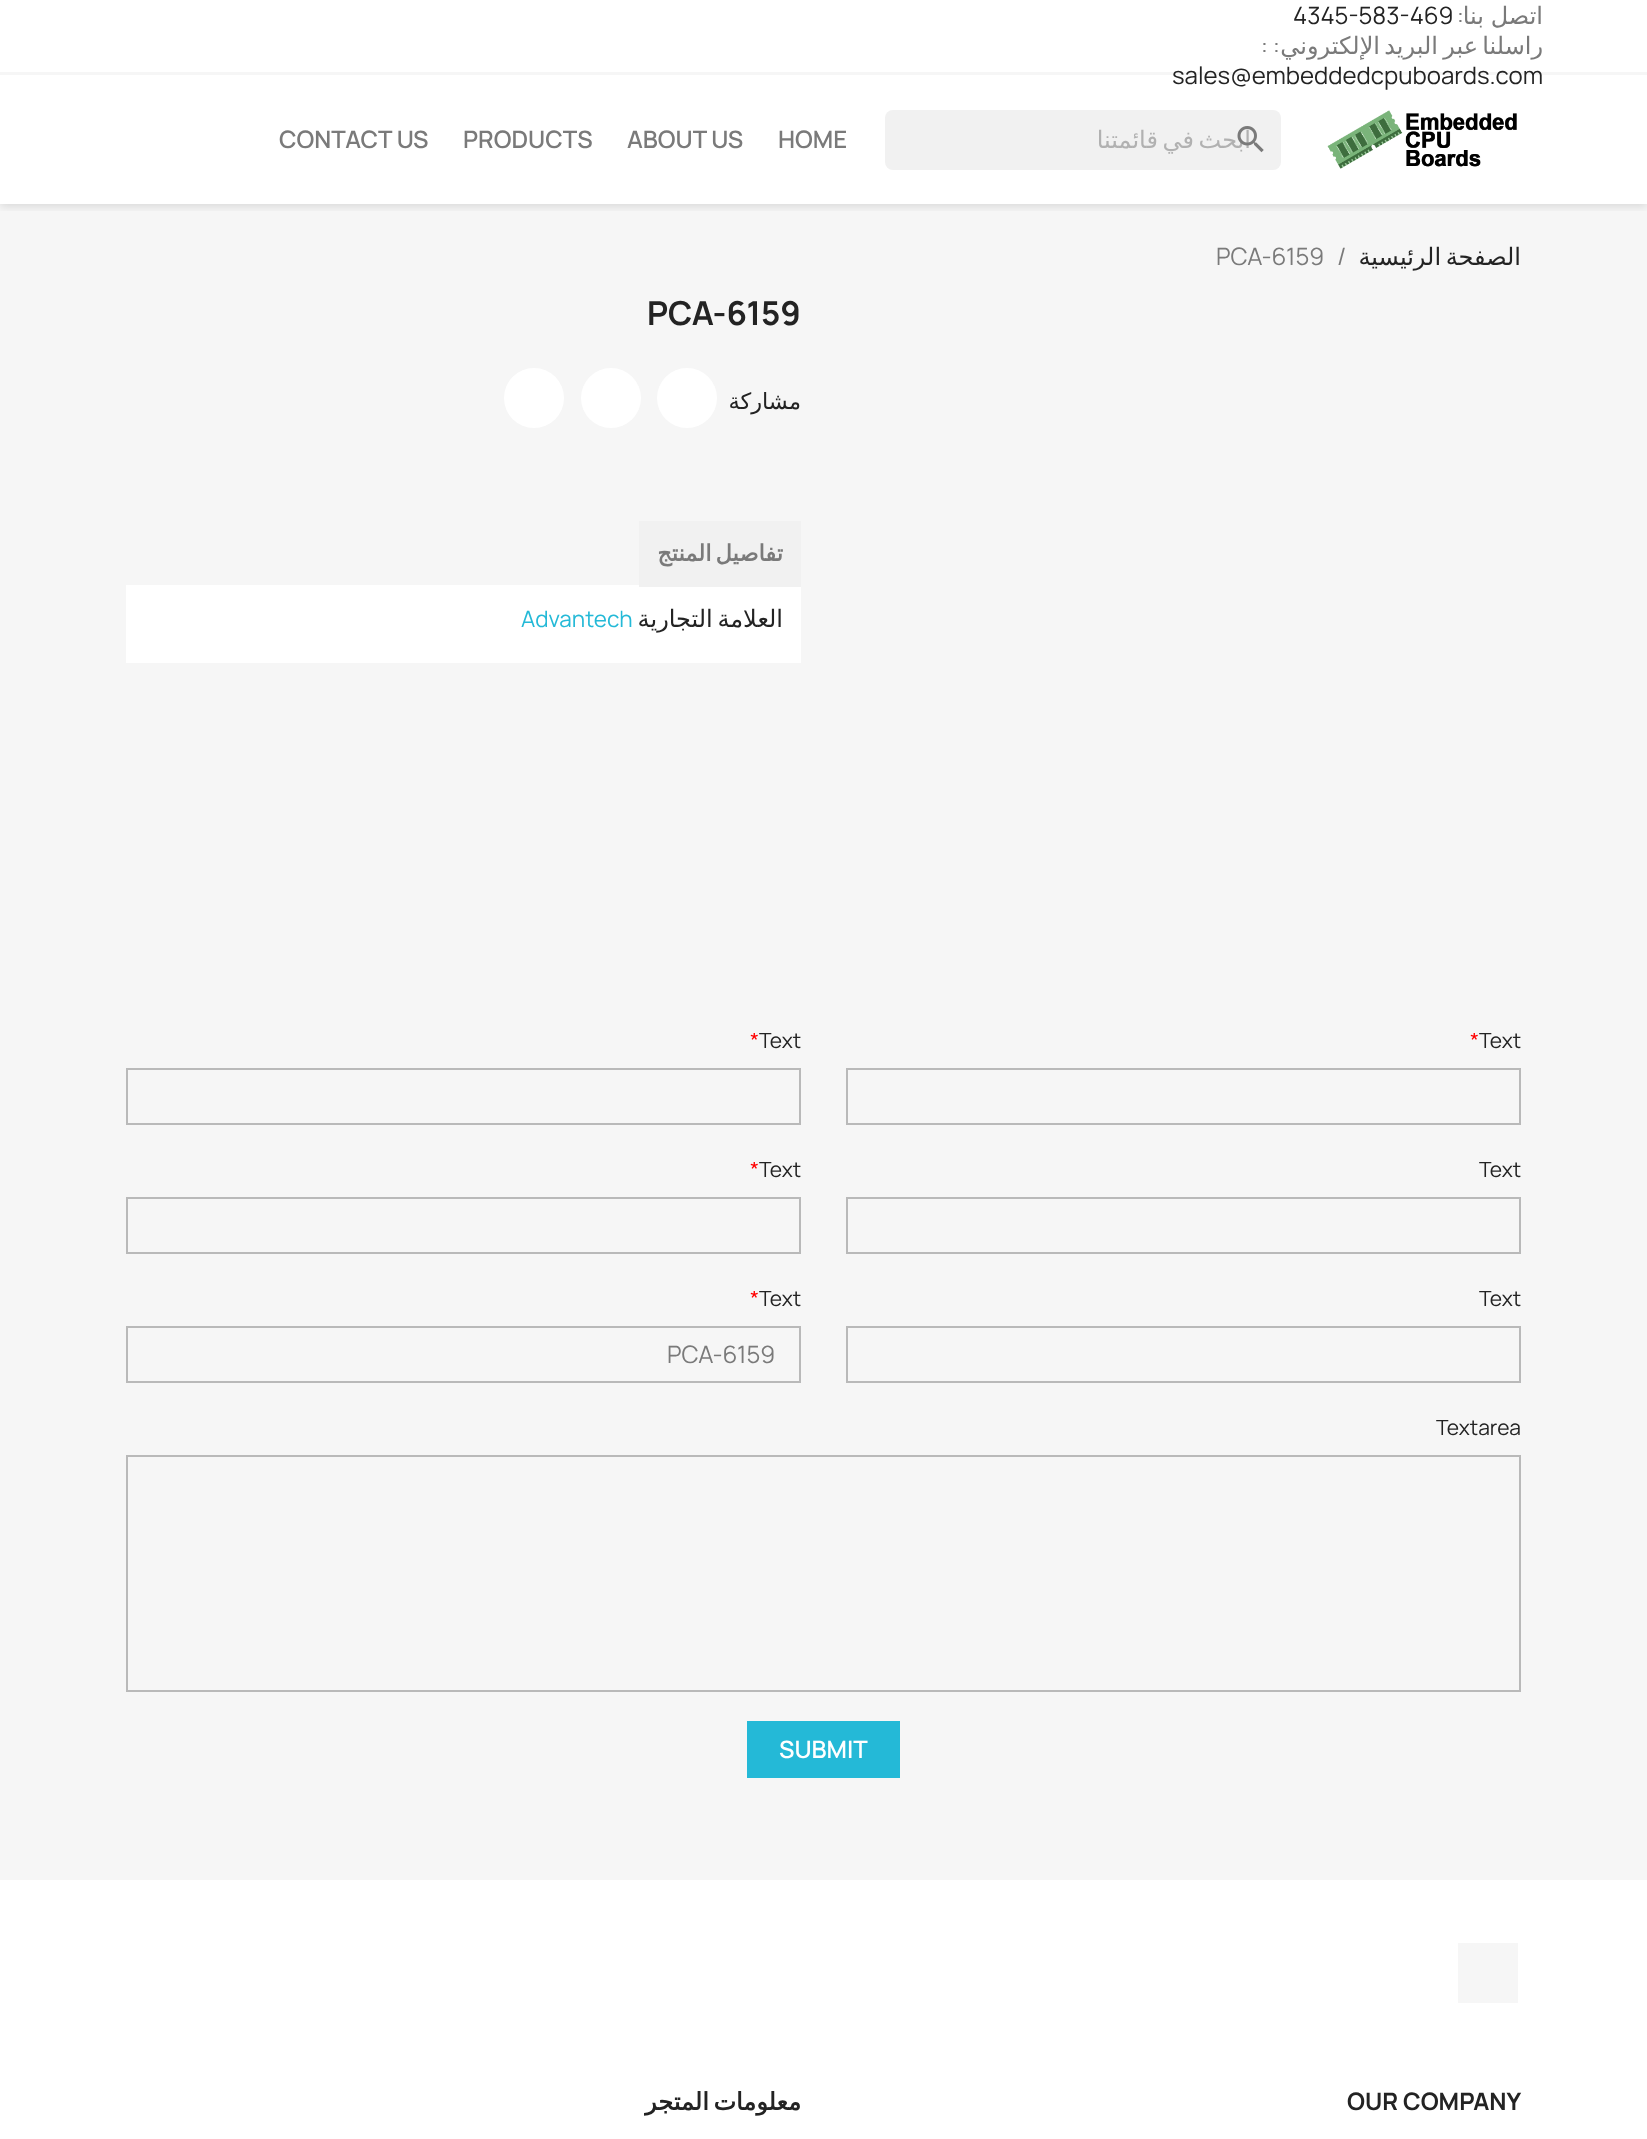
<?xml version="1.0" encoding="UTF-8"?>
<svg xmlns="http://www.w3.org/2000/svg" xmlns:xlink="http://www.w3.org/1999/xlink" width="1647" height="2139">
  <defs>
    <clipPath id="clip1"><rect x="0" y="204" width="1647" height="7" /></clipPath>
  </defs>
  <rect width="100%" height="100%" fill="#ffffff" />
  <rect y="204" width="1647" height="1676" fill="#f6f6f6" />
  <g clip-path="url(#clip1)">
    <rect y="3" width="1647" height="204" fill="#000000" fill-opacity="0.11" filter="blur(4px)" />
  </g>
  <rect y="72" width="1647" height="3" fill="#f6f6f6" />
  <rect x="885" y="110" width="396" height="60" rx="8" fill="#f1f1f1" />
  <image x="1327" y="110" width="190" height="59" xlink:href="image2.png" />
  <circle cx="534" cy="398" r="30" fill="#ffffff" />
  <circle cx="611" cy="398" r="30" fill="#ffffff" />
  <circle cx="687" cy="398" r="30" fill="#ffffff" />
  <rect x="126" y="585" width="675" height="78" fill="#ffffff" />
  <rect x="639" y="521" width="162" height="66" fill="#f1f1f1" />
  <rect x="127" y="1069" width="673" height="55" fill="none" stroke="#b9b9b9" stroke-width="2" />
  <rect x="847" y="1069" width="673" height="55" fill="none" stroke="#b9b9b9" stroke-width="2" />
  <rect x="127" y="1198" width="673" height="55" fill="none" stroke="#b9b9b9" stroke-width="2" />
  <rect x="847" y="1198" width="673" height="55" fill="none" stroke="#b9b9b9" stroke-width="2" />
  <rect x="127" y="1327" width="673" height="55" fill="none" stroke="#b9b9b9" stroke-width="2" />
  <rect x="847" y="1327" width="673" height="55" fill="none" stroke="#b9b9b9" stroke-width="2" />
  <rect x="127" y="1456" width="1393" height="235" fill="none" stroke="#b9b9b9" stroke-width="2" />
  <rect x="747" y="1721" width="153" height="57" fill="#24b9d7" />
  <rect x="1458" y="1943" width="60" height="60" fill="#f6f6f6" />
  <text x="1293" y="24" style="font-family: Manrope; font-size: 24px; fill: #232323">4345-583-469</text>
  <text x="1464" y="24" style="font-family: Manrope; font-size: 24px; direction: rtl; fill: #7a7a7a">:</text>
  <text x="1543" y="24" word-spacing="-1" style="font-family: DejaVu Sans; font-size: 24px; direction: rtl; fill: #7a7a7a">اتصل بنا</text>
  <text x="1280" y="54" style="font-family: Manrope; font-size: 24px; direction: rtl; fill: #7a7a7a">: :</text>
  <text x="1380" y="54" style="font-family: DejaVu Sans; font-size: 24px; direction: rtl; fill: #7a7a7a">الإلكتروني</text>
  <text x="1438" y="54" style="font-family: DejaVu Sans; font-size: 24px; direction: rtl; fill: #7a7a7a">البريد</text>
  <text x="1478" y="54" style="font-family: DejaVu Sans; font-size: 24px; direction: rtl; fill: #7a7a7a">عبر</text>
  <text x="1543" y="54" style="font-family: DejaVu Sans; font-size: 24px; direction: rtl; fill: #7a7a7a">راسلنا</text>
  <text x="1172" y="84" style="font-family: Manrope; font-size: 24px; fill: #232323">sales@embeddedcpuboards.com</text>
  <text x="279" y="148" style="font-family: Manrope; font-size: 24px; font-weight: 600; fill: #7a7a7a">CONTACT US</text>
  <text x="463" y="148" style="font-family: Manrope; font-size: 24px; font-weight: 600; fill: #7a7a7a">PRODUCTS</text>
  <text x="627" y="148" style="font-family: Manrope; font-size: 24px; font-weight: 600; fill: #7a7a7a">ABOUT US</text>
  <text x="778" y="148" style="font-family: Manrope; font-size: 24px; font-weight: 600; fill: #7a7a7a">HOME</text>
  <text x="1251" y="148" word-spacing="-3" style="font-family: DejaVu Sans; font-size: 24px; direction: rtl; fill: #b1b1b1">ابحث في قائمتنا</text>
  <image x="1237" y="126" width="27" height="27" xlink:href="image1.png" />
  <text x="1216" y="265" style="font-family: Manrope; font-size: 24px; fill: #7a7a7a">PCA-6159</text>
  <text x="1337" y="265" style="font-family: Manrope; font-size: 24px; fill: #7a7a7a">/</text>
  <text x="1521" y="265" word-spacing="-3" style="font-family: DejaVu Sans; font-size: 24px; direction: rtl; fill: #232323">الصفحة الرئيسية</text>
  <text x="647" y="325" style="font-family: Manrope; font-size: 33px; font-weight: bold; fill: #232323">PCA-6159</text>
  <text x="801" y="409" style="font-family: DejaVu Sans; font-size: 22.5px; direction: rtl; fill: #232323">مشاركة</text>
  <text x="783" y="561" word-spacing="-3" style="font-family: DejaVu Sans; font-size: 22.5px; font-weight: bold; direction: rtl; fill: #7a7a7a">تفاصيل المنتج</text>
  <text x="521" y="627" style="font-family: Manrope; font-size: 22.5px; fill: #24b9d7">Advantech</text>
  <text x="783" y="627" word-spacing="-3" style="font-family: DejaVu Sans; font-size: 24px; direction: rtl; fill: #232323">العلامة التجارية</text>
  <text x="750" y="1048" style="font-family: Manrope; font-size: 21px; fill: #ff0000">*</text>
  <text x="759" y="1048" style="font-family: Manrope; font-size: 21px; fill: #232323">Text</text>
  <text x="1470" y="1048" style="font-family: Manrope; font-size: 21px; fill: #ff0000">*</text>
  <text x="1479" y="1048" style="font-family: Manrope; font-size: 21px; fill: #232323">Text</text>
  <text x="750" y="1177" style="font-family: Manrope; font-size: 21px; fill: #ff0000">*</text>
  <text x="759" y="1177" style="font-family: Manrope; font-size: 21px; fill: #232323">Text</text>
  <text x="1479" y="1177" style="font-family: Manrope; font-size: 21px; fill: #232323">Text</text>
  <text x="750" y="1306" style="font-family: Manrope; font-size: 21px; fill: #ff0000">*</text>
  <text x="759" y="1306" style="font-family: Manrope; font-size: 21px; fill: #232323">Text</text>
  <text x="667" y="1363" style="font-family: Manrope; font-size: 24px; fill: #7a7a7a">PCA-6159</text>
  <text x="1479" y="1306" style="font-family: Manrope; font-size: 21px; fill: #232323">Text</text>
  <text x="1436" y="1435" style="font-family: Manrope; font-size: 21px; fill: #232323">Textarea</text>
  <text x="779" y="1758" style="font-family: Manrope; font-size: 24px; font-weight: 600; fill: #ffffff">SUBMIT</text>
  <text x="801" y="2110" word-spacing="-3" style="font-family: DejaVu Sans; font-size: 24px; font-weight: bold; direction: rtl; fill: #232323">معلومات المتجر</text>
  <text x="1347" y="2110" style="font-family: Manrope; font-size: 24px; font-weight: bold; fill: #232323">OUR COMPANY</text>
</svg>
